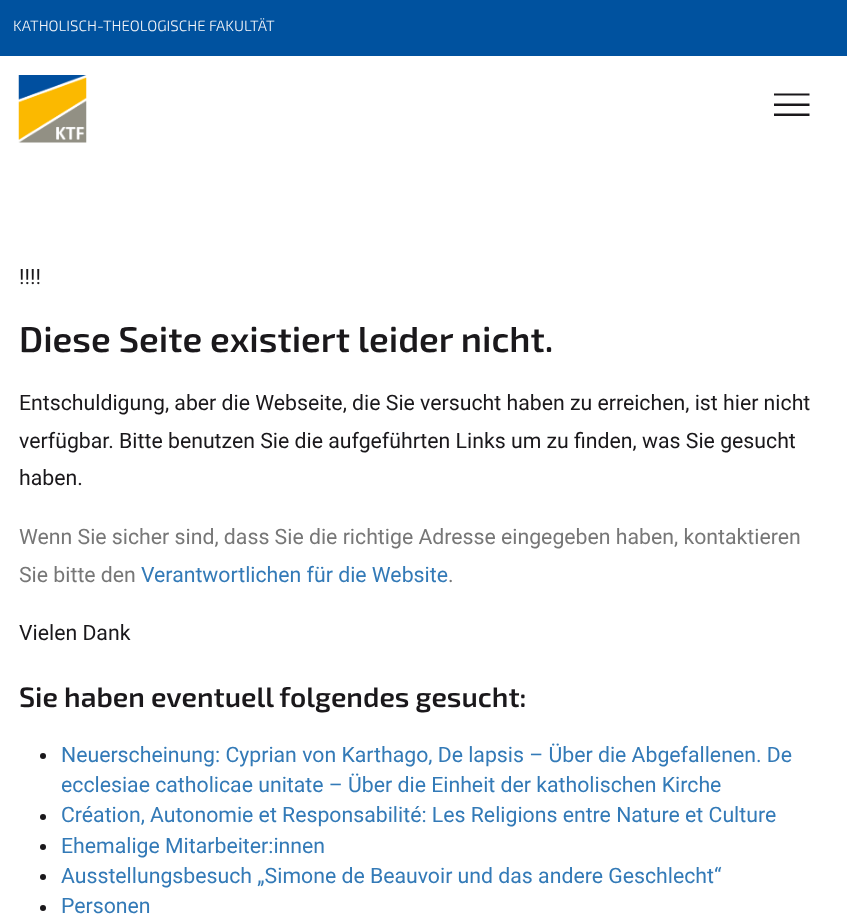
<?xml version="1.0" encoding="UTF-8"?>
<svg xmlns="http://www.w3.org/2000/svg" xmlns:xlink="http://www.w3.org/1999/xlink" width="847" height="918">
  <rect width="100%" height="100%" fill="#ffffff" />
  <rect width="847" height="56" fill="#00529f" />
  <image x="18" y="75" width="69" height="68" xlink:href="image1.png" />
  <path d="M 774 116 h 35.5 v -2.5 h -35.5 z m 0 -10 h 35.5 v -2.5 h -35.5 z m 0 -12.5 v 2 h 35.5 v -2 z" fill="#1a181b" />
  <circle cx="43" cy="756" r="3" fill="#1a181b" />
  <circle cx="43" cy="817" r="3" fill="#1a181b" />
  <circle cx="43" cy="847" r="3" fill="#1a181b" />
  <circle cx="43" cy="877" r="3" fill="#1a181b" />
  <circle cx="43" cy="908" r="3" fill="#1a181b" />
  <text x="13" y="31" style="font-family: 'Exo 2'; font-size: 15px; font-weight: 300; fill: #f6f7f9">KATHOLISCH-THEOLOGISCHE FAKULTÄT</text>
  <text x="19" y="284" style="font-family: Roboto; font-size: 21.25px; fill: #1a181b">!!!!</text>
  <text x="19" y="352" style="font-family: 'Exo 2'; font-size: 35.75px; font-weight: 600; fill: #1a181b">Diese Seite existiert leider nicht.</text>
  <text x="19" y="410" style="font-family: Roboto; font-size: 21.25px; fill: #1a181b">Entschuldigung, aber die Webseite, die Sie versucht haben zu erreichen, ist hier nicht</text>
  <text x="19" y="448" style="font-family: Roboto; font-size: 21.25px; fill: #1a181b">verfügbar. Bitte benutzen Sie die aufgeführten Links um zu finden, was Sie gesucht</text>
  <text x="19" y="485" style="font-family: Roboto; font-size: 21.25px; fill: #1a181b">haben.</text>
  <text x="19" y="544" style="font-family: Roboto; font-size: 21.25px; fill: #777777">Wenn Sie sicher sind, dass Sie die richtige Adresse eingegeben haben, kontaktieren</text>
  <text x="19" y="582" style="font-family: Roboto; font-size: 21.25px; fill: #777777">Sie bitte den</text>
  <text x="141" y="582" style="font-family: Roboto; font-size: 21.25px; fill: #337ab7">Verantwortlichen für die Website</text>
  <text x="448" y="582" style="font-family: Roboto; font-size: 21.25px; fill: #777777">.</text>
  <text x="19" y="640" style="font-family: Roboto; font-size: 21.25px; fill: #1a181b">Vielen Dank</text>
  <text x="19" y="707" style="font-family: 'Exo 2'; font-size: 28px; font-weight: 600; fill: #1a181b">Sie haben eventuell folgendes gesucht:</text>
  <text x="61" y="762" style="font-family: Roboto; font-size: 21.25px; fill: #337ab7">Neuerscheinung: Cyprian von Karthago, De lapsis – Über die Abgefallenen. De</text>
  <text x="61" y="792" style="font-family: Roboto; font-size: 21.25px; fill: #337ab7">ecclesiae catholicae unitate – Über die Einheit der katholischen Kirche</text>
  <text x="61" y="822" style="font-family: Roboto; font-size: 21.25px; fill: #337ab7">Création, Autonomie et Responsabilité: Les Religions entre Nature et Culture</text>
  <text x="61" y="853" style="font-family: Roboto; font-size: 21.25px; fill: #337ab7">Ehemalige Mitarbeiter:innen</text>
  <text x="61" y="883" style="font-family: Roboto; font-size: 21.25px; fill: #337ab7">Ausstellungsbesuch „Simone de Beauvoir und das andere Geschlecht“</text>
  <text x="61" y="913" style="font-family: Roboto; font-size: 21.25px; fill: #337ab7">Personen</text>
</svg>
